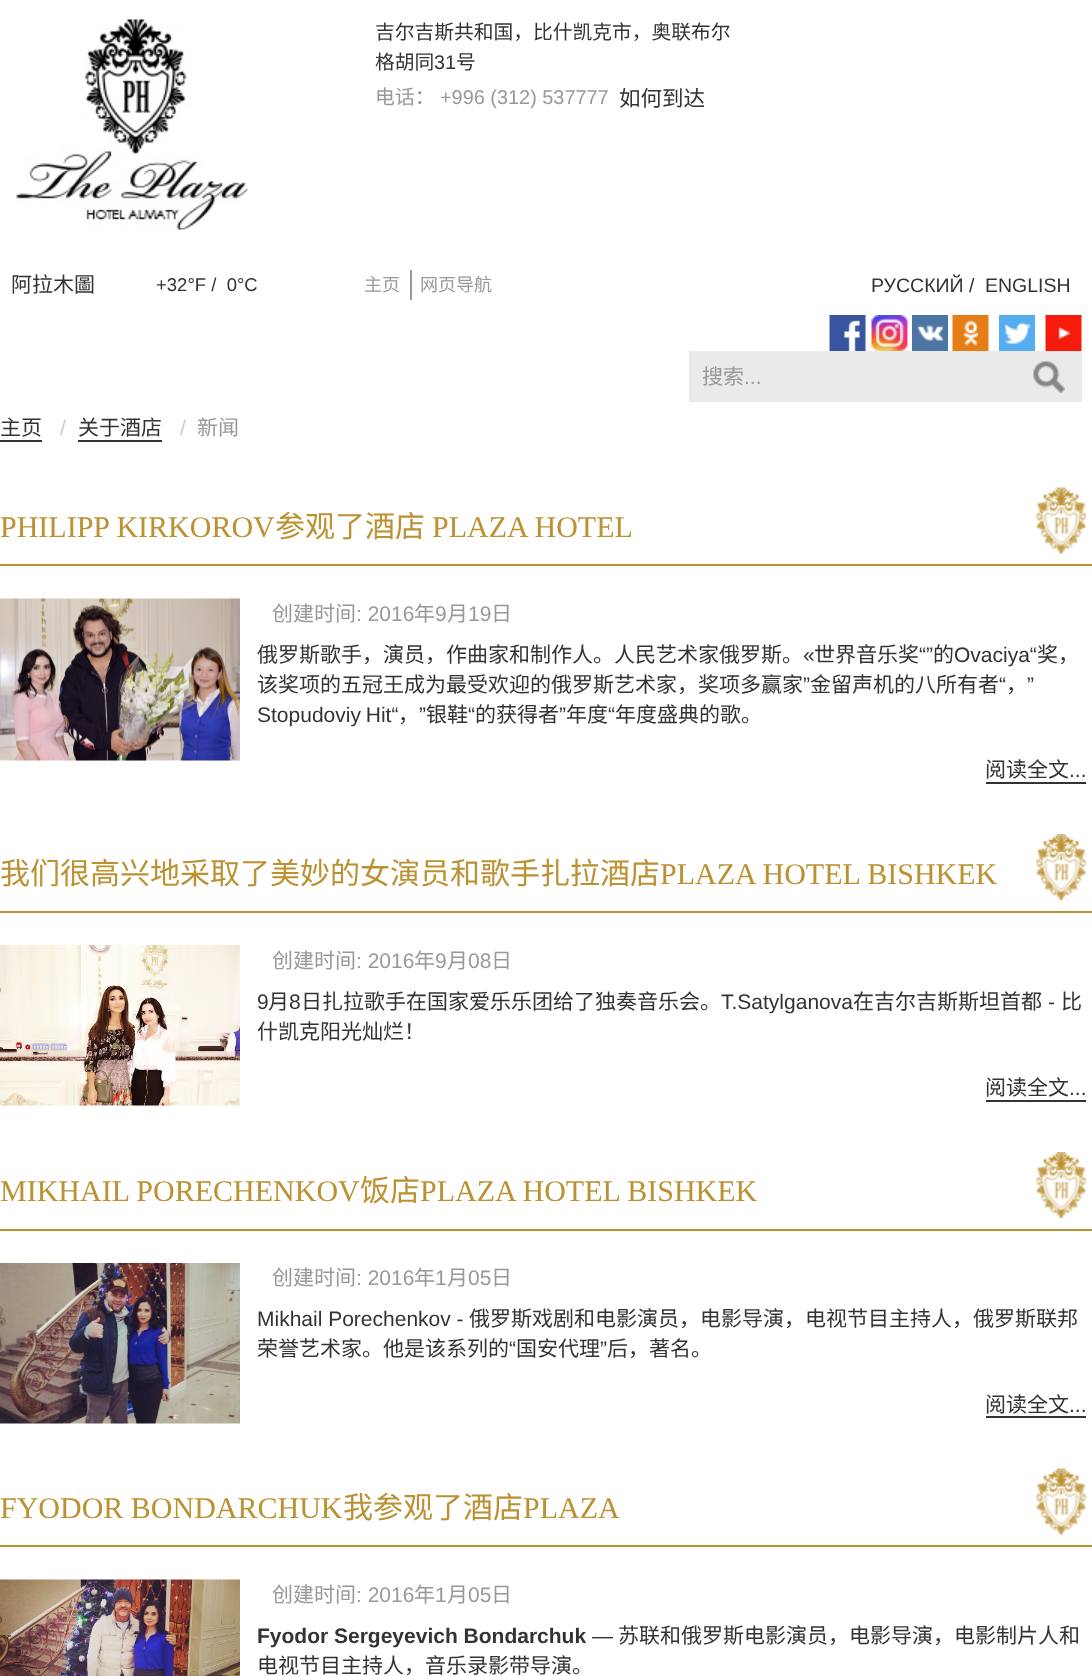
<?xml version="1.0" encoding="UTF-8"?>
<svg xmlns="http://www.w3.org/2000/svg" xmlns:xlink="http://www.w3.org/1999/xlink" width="1092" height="1676">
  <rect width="100%" height="100%" fill="#ffffff" />
  <image x="16" y="19" width="232" height="211" xlink:href="image1.png" />
  <rect x="410" y="270" width="2" height="30" fill="#999999" />
  <image x="829" y="315" width="37" height="36" xlink:href="image2.png" />
  <image x="871" y="315" width="37" height="36" xlink:href="image3.png" />
  <image x="912" y="315" width="36" height="36" xlink:href="image4.png" />
  <image x="952" y="315" width="37" height="36" xlink:href="image5.png" />
  <image x="999" y="315" width="36" height="36" xlink:href="image6.png" />
  <image x="1045" y="315" width="37" height="36" xlink:href="image7.png" />
  <rect x="689" y="351" width="393" height="51" fill="#eaeaea" />
  <image x="1033" y="361" width="32" height="32" xlink:href="image8.png" />
  <rect y="440" width="42" height="2" fill="#333333" />
  <rect x="78" y="440" width="84" height="2" fill="#333333" />
  <image x="1036" y="487" width="51" height="67" xlink:href="image9.png" />
  <rect y="564" width="1092" height="2" fill="#bb9132" />
  <image x="0" y="598" width="240" height="163" xlink:href="image10.png" />
  <rect x="986" y="782" width="100" height="2" fill="#333333" />
  <image x="1036" y="834" width="51" height="67" xlink:href="image11.png" />
  <rect y="911" width="1092" height="2" fill="#bb9132" />
  <image x="0" y="945" width="240" height="161" xlink:href="image12.png" />
  <rect x="986" y="1100" width="100" height="2" fill="#333333" />
  <image x="1036" y="1152" width="51" height="67" xlink:href="image11.png" />
  <rect y="1229" width="1092" height="2" fill="#bb9132" />
  <image x="0" y="1263" width="240" height="161" xlink:href="image13.png" />
  <rect x="986" y="1416" width="100" height="2" fill="#333333" />
  <image x="1036" y="1468" width="51" height="67" xlink:href="image9.png" />
  <rect y="1545" width="1092" height="2" fill="#bb9132" />
  <image x="0" y="1579" width="240" height="97" xlink:href="image14.png" />
  <text x="375" y="39" style="font-family: Noto Sans CJK SC; font-size: 19.75px; fill: #333333">吉尔吉斯共和国，比什凯克市，奥联布尔</text>
  <text x="375" y="69" style="font-family: Noto Sans CJK SC; font-size: 19.75px; fill: #333333">格胡同</text>
  <text x="434" y="69" style="font-family: Liberation Sans; font-size: 19.75px; fill: #333333">31</text>
  <text x="456" y="69" style="font-family: Noto Sans CJK SC; font-size: 19.75px; fill: #333333">号</text>
  <text x="375" y="104" style="font-family: Noto Sans CJK SC; font-size: 19.9px; fill: #999999">电话：</text>
  <text x="440" y="104" style="font-family: Liberation Sans; font-size: 19.9px; fill: #999999">+996 (312) 537777</text>
  <text x="619" y="106" style="font-family: Noto Sans CJK SC; font-size: 21.5px; fill: #333333">如何到达</text>
  <text x="11" y="292" style="font-family: Noto Sans CJK SC; font-size: 21px; fill: #333333">阿拉木圖</text>
  <text x="156" y="291" style="font-family: Liberation Sans; font-size: 18.5px; fill: #333333" xml:space="preserve">+32°F /  0°C</text>
  <text x="364" y="291" style="font-family: Noto Sans CJK SC; font-size: 18px; fill: #999999">主页</text>
  <text x="420" y="291" style="font-family: Noto Sans CJK SC; font-size: 18px; fill: #999999">网页导航</text>
  <text x="871" y="292" style="font-family: Liberation Sans; font-size: 19.5px; fill: #333333">РУССКИЙ /</text>
  <text x="985" y="292" style="font-family: Liberation Sans; font-size: 19.5px; fill: #333333">ENGLISH</text>
  <text x="702" y="384" style="font-family: Noto Sans CJK SC; font-size: 21px; fill: #999999">搜索</text>
  <text x="744" y="384" style="font-family: Liberation Sans; font-size: 21px; fill: #999999">...</text>
  <text x="0" y="435" style="font-family: Noto Sans CJK SC; font-size: 21px; fill: #333333">主页</text>
  <text x="60" y="435" style="font-family: Liberation Sans; font-size: 21px; fill: #cccccc">/</text>
  <text x="78" y="435" style="font-family: Noto Sans CJK SC; font-size: 21px; fill: #333333">关于酒店</text>
  <text x="180" y="435" style="font-family: Liberation Sans; font-size: 21px; fill: #cccccc">/</text>
  <text x="197" y="435" style="font-family: Noto Sans CJK SC; font-size: 21px; fill: #999999">新闻</text>
  <text x="0" y="537" style="font-family: Liberation Serif; font-size: 30px; fill: #bb9132">PHILIPP KIRKOROV</text>
  <text x="275" y="537" style="font-family: Noto Sans CJK SC; font-size: 30px; fill: #bb9132">参观了酒店</text>
  <text x="432" y="537" style="font-family: Liberation Serif; font-size: 30px; fill: #bb9132">PLAZA HOTEL</text>
  <text x="272" y="621" style="font-family: Noto Sans CJK SC; font-size: 21px; fill: #999999">创建时间</text>
  <text x="356" y="621" style="font-family: Liberation Sans; font-size: 21px; fill: #999999">: 2016</text>
  <text x="414" y="621" style="font-family: Noto Sans CJK SC; font-size: 21px; fill: #999999">年</text>
  <text x="435" y="621" style="font-family: Liberation Sans; font-size: 21px; fill: #999999">9</text>
  <text x="447" y="621" style="font-family: Noto Sans CJK SC; font-size: 21px; fill: #999999">月</text>
  <text x="468" y="621" style="font-family: Liberation Sans; font-size: 21px; fill: #999999">19</text>
  <text x="491" y="621" style="font-family: Noto Sans CJK SC; font-size: 21px; fill: #999999">日</text>
  <text x="257" y="662" style="font-family: Noto Sans CJK SC; font-size: 21px; fill: #333333">俄罗斯歌手，演员，作曲家和制作人。人民艺术家俄罗斯。</text>
  <text x="814" y="662" style="font-family: Noto Sans CJK SC; font-size: 21px; fill: #333333">世界音乐奖</text>
  <text x="919" y="662" style="font-family: Liberation Sans; font-size: 21px; fill: #333333">“”</text>
  <text x="933" y="662" style="font-family: Noto Sans CJK SC; font-size: 21px; fill: #333333">的</text>
  <text x="954" y="662" style="font-family: Liberation Sans; font-size: 21px; fill: #333333">Ovaciya“</text>
  <text x="1037" y="662" style="font-family: Noto Sans CJK SC; font-size: 21px; fill: #333333">奖，</text>
  <text x="803" y="662" style="font-family: Liberation Sans; font-size: 21px; fill: #333333">«</text>
  <text x="257" y="692" style="font-family: Noto Sans CJK SC; font-size: 21px; fill: #333333">该奖项的五冠王成为最受欢迎的俄罗斯艺术家，奖项多赢家</text>
  <text x="803" y="692" style="font-family: Liberation Sans; font-size: 21px; fill: #333333">”</text>
  <text x="810" y="692" style="font-family: Noto Sans CJK SC; font-size: 21px; fill: #333333">金留声机的八所有者</text>
  <text x="999" y="692" style="font-family: Liberation Sans; font-size: 21px; fill: #333333">“</text>
  <text x="1027" y="692" style="font-family: Liberation Sans; font-size: 21px; fill: #333333">”</text>
  <text x="1006" y="692" style="font-family: Noto Sans CJK SC; font-size: 21px; fill: #333333">，</text>
  <text x="257" y="722" word-spacing="-1" style="font-family: Liberation Sans; font-size: 21px; fill: #333333">Stopudoviy Hit“</text>
  <text x="419" y="722" style="font-family: Liberation Sans; font-size: 21px; fill: #333333">”</text>
  <text x="426" y="722" style="font-family: Noto Sans CJK SC; font-size: 21px; fill: #333333">银鞋</text>
  <text x="468" y="722" style="font-family: Liberation Sans; font-size: 21px; fill: #333333">“</text>
  <text x="475" y="722" style="font-family: Noto Sans CJK SC; font-size: 21px; fill: #333333">的获得者</text>
  <text x="559" y="722" style="font-family: Liberation Sans; font-size: 21px; fill: #333333">”</text>
  <text x="566" y="722" style="font-family: Noto Sans CJK SC; font-size: 21px; fill: #333333">年度</text>
  <text x="608" y="722" style="font-family: Liberation Sans; font-size: 21px; fill: #333333">“</text>
  <text x="615" y="722" style="font-family: Noto Sans CJK SC; font-size: 21px; fill: #333333">年度盛典的歌。</text>
  <text x="398" y="722" style="font-family: Noto Sans CJK SC; font-size: 21px; fill: #333333">，</text>
  <text x="985" y="777" style="font-family: Noto Sans CJK SC; font-size: 21px; fill: #333333">阅读全文</text>
  <text x="1069" y="777" style="font-family: Liberation Sans; font-size: 21px; fill: #333333">...</text>
  <text x="0" y="884" style="font-family: Noto Sans CJK SC; font-size: 30px; fill: #bb9132">我们很高兴地采取了美妙的女演员和歌手扎拉酒店</text>
  <text x="660" y="884" style="font-family: Liberation Serif; font-size: 30px; fill: #bb9132">PLAZA HOTEL BISHKEK</text>
  <text x="272" y="968" style="font-family: Noto Sans CJK SC; font-size: 21px; fill: #999999">创建时间</text>
  <text x="356" y="968" style="font-family: Liberation Sans; font-size: 21px; fill: #999999">: 2016</text>
  <text x="414" y="968" style="font-family: Noto Sans CJK SC; font-size: 21px; fill: #999999">年</text>
  <text x="435" y="968" style="font-family: Liberation Sans; font-size: 21px; fill: #999999">9</text>
  <text x="447" y="968" style="font-family: Noto Sans CJK SC; font-size: 21px; fill: #999999">月</text>
  <text x="468" y="968" style="font-family: Liberation Sans; font-size: 21px; fill: #999999">08</text>
  <text x="491" y="968" style="font-family: Noto Sans CJK SC; font-size: 21px; fill: #999999">日</text>
  <text x="257" y="1009" style="font-family: Liberation Sans; font-size: 21px; fill: #333333">9</text>
  <text x="268" y="1009" style="font-family: Noto Sans CJK SC; font-size: 21px; fill: #333333">月</text>
  <text x="289" y="1009" style="font-family: Liberation Sans; font-size: 21px; fill: #333333">8</text>
  <text x="301" y="1009" style="font-family: Noto Sans CJK SC; font-size: 21px; fill: #333333">日扎拉歌手在国家爱乐乐团给了独奏音乐会。</text>
  <text x="721" y="1009" style="font-family: Liberation Sans; font-size: 21px; fill: #333333">T.Satylganova</text>
  <text x="853" y="1009" style="font-family: Noto Sans CJK SC; font-size: 21px; fill: #333333">在吉尔吉斯斯坦首都</text>
  <text x="1048" y="1009" style="font-family: Liberation Sans; font-size: 21px; fill: #333333">-</text>
  <text x="1061" y="1009" style="font-family: Noto Sans CJK SC; font-size: 21px; fill: #333333">比</text>
  <text x="257" y="1039" style="font-family: Noto Sans CJK SC; font-size: 21px; fill: #333333">什凯克阳光灿烂！</text>
  <text x="985" y="1095" style="font-family: Noto Sans CJK SC; font-size: 21px; fill: #333333">阅读全文</text>
  <text x="1069" y="1095" style="font-family: Liberation Sans; font-size: 21px; fill: #333333">...</text>
  <text x="0" y="1201" style="font-family: Liberation Serif; font-size: 30px; fill: #bb9132">MIKHAIL PORECHENKOV</text>
  <text x="360" y="1201" style="font-family: Noto Sans CJK SC; font-size: 30px; fill: #bb9132">饭店</text>
  <text x="420" y="1201" style="font-family: Liberation Serif; font-size: 30px; fill: #bb9132">PLAZA HOTEL BISHKEK</text>
  <text x="272" y="1285" style="font-family: Noto Sans CJK SC; font-size: 21px; fill: #999999">创建时间</text>
  <text x="356" y="1285" style="font-family: Liberation Sans; font-size: 21px; fill: #999999">: 2016</text>
  <text x="414" y="1285" style="font-family: Noto Sans CJK SC; font-size: 21px; fill: #999999">年</text>
  <text x="435" y="1285" style="font-family: Liberation Sans; font-size: 21px; fill: #999999">1</text>
  <text x="447" y="1285" style="font-family: Noto Sans CJK SC; font-size: 21px; fill: #999999">月</text>
  <text x="468" y="1285" style="font-family: Liberation Sans; font-size: 21px; fill: #999999">05</text>
  <text x="491" y="1285" style="font-family: Noto Sans CJK SC; font-size: 21px; fill: #999999">日</text>
  <text x="257" y="1326" style="font-family: Liberation Sans; font-size: 21px; fill: #333333">Mikhail Porechenkov -</text>
  <text x="469" y="1326" style="font-family: Noto Sans CJK SC; font-size: 21px; fill: #333333">俄罗斯戏剧和电影演员，电影导演，电视节目主持人，俄罗斯联邦</text>
  <text x="257" y="1356" style="font-family: Noto Sans CJK SC; font-size: 21px; fill: #333333">荣誉艺术家。他是该系列的</text>
  <text x="509" y="1356" style="font-family: Liberation Sans; font-size: 21px; fill: #333333">“</text>
  <text x="516" y="1356" style="font-family: Noto Sans CJK SC; font-size: 21px; fill: #333333">国安代理</text>
  <text x="600" y="1356" style="font-family: Liberation Sans; font-size: 21px; fill: #333333">”</text>
  <text x="607" y="1356" style="font-family: Noto Sans CJK SC; font-size: 21px; fill: #333333">后，著名。</text>
  <text x="985" y="1412" style="font-family: Noto Sans CJK SC; font-size: 21px; fill: #333333">阅读全文</text>
  <text x="1069" y="1412" style="font-family: Liberation Sans; font-size: 21px; fill: #333333">...</text>
  <text x="0" y="1518" style="font-family: Liberation Serif; font-size: 30px; fill: #bb9132">FYODOR BONDARCHUK</text>
  <text x="343" y="1518" style="font-family: Noto Sans CJK SC; font-size: 30px; fill: #bb9132">我参观了酒店</text>
  <text x="523" y="1518" style="font-family: Liberation Serif; font-size: 30px; fill: #bb9132">PLAZA</text>
  <text x="272" y="1602" style="font-family: Noto Sans CJK SC; font-size: 21px; fill: #999999">创建时间</text>
  <text x="356" y="1602" style="font-family: Liberation Sans; font-size: 21px; fill: #999999">: 2016</text>
  <text x="414" y="1602" style="font-family: Noto Sans CJK SC; font-size: 21px; fill: #999999">年</text>
  <text x="435" y="1602" style="font-family: Liberation Sans; font-size: 21px; fill: #999999">1</text>
  <text x="447" y="1602" style="font-family: Noto Sans CJK SC; font-size: 21px; fill: #999999">月</text>
  <text x="468" y="1602" style="font-family: Liberation Sans; font-size: 21px; fill: #999999">05</text>
  <text x="491" y="1602" style="font-family: Noto Sans CJK SC; font-size: 21px; fill: #999999">日</text>
  <text x="257" y="1643" style="font-family: Liberation Sans; font-size: 21px; font-weight: bold; fill: #333333">Fyodor Sergeyevich Bondarchuk</text>
  <text x="592" y="1643" style="font-family: Liberation Sans; font-size: 21px; fill: #333333">—</text>
  <text x="618" y="1643" style="font-family: Noto Sans CJK SC; font-size: 21px; fill: #333333">苏联和俄罗斯电影演员，电影导演，电影制片人和</text>
  <text x="257" y="1673" style="font-family: Noto Sans CJK SC; font-size: 21px; fill: #333333">电视节目主持人，音乐录影带导演。</text>
</svg>
